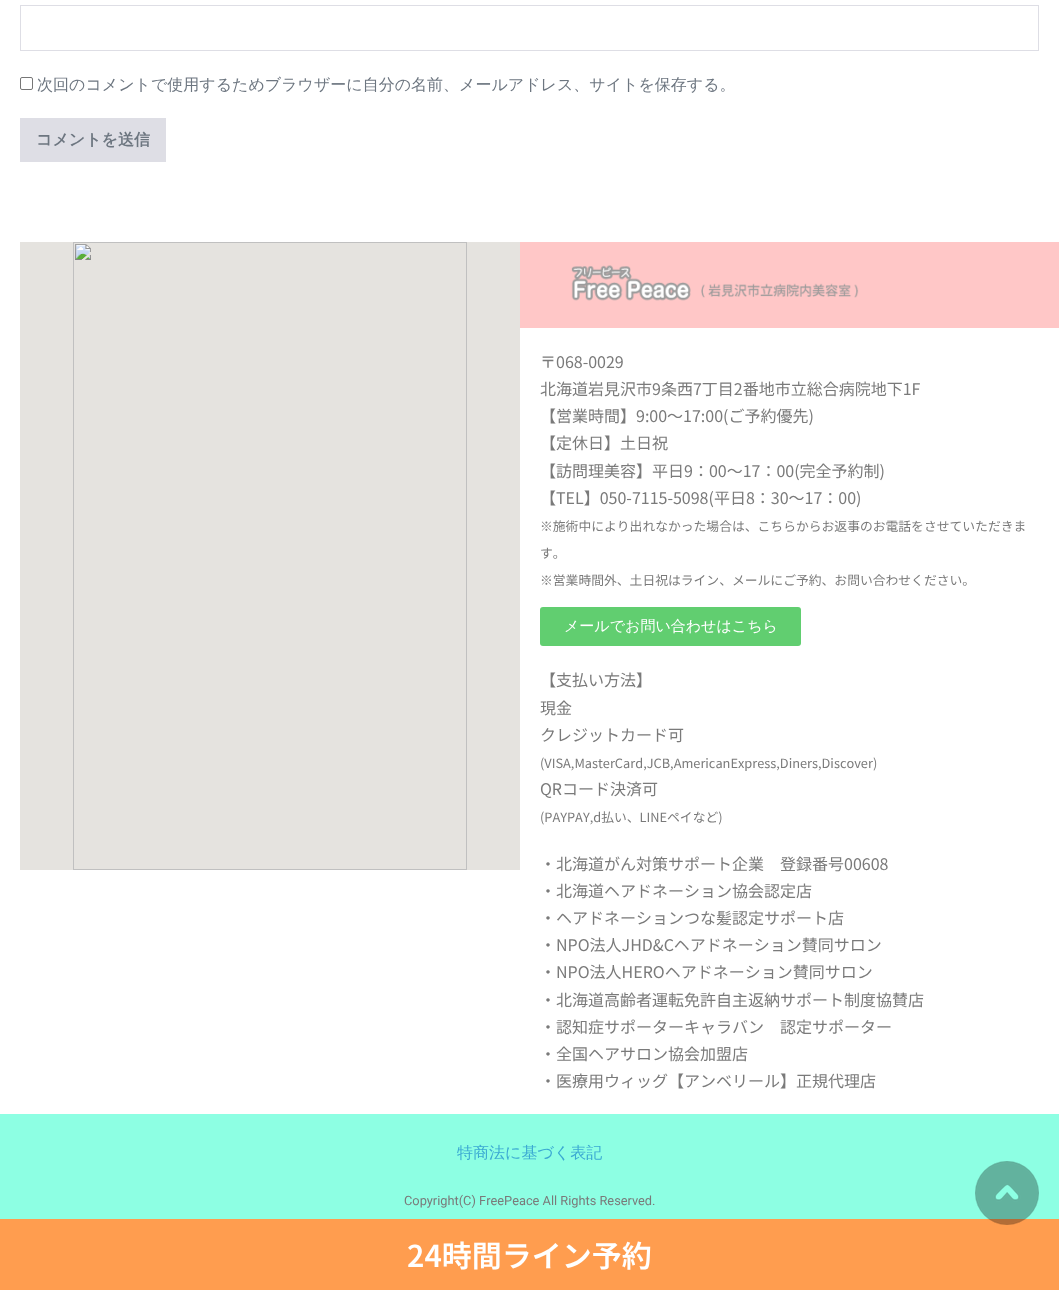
<?xml version="1.0" encoding="UTF-8"?>
<svg xmlns="http://www.w3.org/2000/svg" xmlns:xlink="http://www.w3.org/1999/xlink" width="1059" height="1290">
  <style>*{font-kerning:none!important;font-variant-ligatures:none!important}</style>
  <rect width="100%" height="100%" fill="#ffffff" />
  <rect x="20.5" y="5.5" width="1018" height="45" fill="none" stroke="#dedee5" />
  <rect x="20.5" y="77.5" width="12" height="12" rx="1.5" fill="none" stroke="#767676" />
  <rect x="20" y="118" width="146" height="44" fill="#dedee5" />
  <image x="20" y="242" width="500" height="628" xlink:href="image1.png" />
  <rect x="520" y="242" width="539" height="86" fill="#ffc7c7" />
  <image x="571" y="265" width="288" height="36" xlink:href="image2.png" />
  <rect x="540" y="607" width="261" height="39" rx="3" fill="#61ce70" />
  <rect y="1114" width="1059" height="105" fill="#8dffe3" />
  <rect y="1219" width="1059" height="71" fill="#ff9d4f" />
  <image x="975" y="1161" width="64" height="64" xlink:href="image3.png" />
  <text x="37" y="90" style="font-family: WenQuanYi Zen Hei; font-size: 16px; font-weight: 500; fill: #6d7680">次回のコメントで使用するためブラウザーに自分の名前、メールアドレス、サイトを保存する。</text>
  <text x="36" y="145" style="font-family: WenQuanYi Zen Hei; font-size: 16px; font-weight: bold; fill: #6d7680">コメントを送信</text>
  <text x="540" y="368" style="font-family: Noto Sans JP; font-size: 16px; fill: #7a7a7a">〒068-0029</text>
  <text x="540" y="395" style="font-family: Noto Sans JP; font-size: 16px; fill: #7a7a7a">北海道岩見沢市9条西7丁目2番地市立総合病院地下1F</text>
  <text x="540" y="422" style="font-family: Noto Sans JP; font-size: 16px; fill: #7a7a7a">【営業時間】9:00〜17:00(ご予約優先)</text>
  <text x="540" y="449" style="font-family: Noto Sans JP; font-size: 16px; fill: #7a7a7a">【定休日】土日祝</text>
  <text x="540" y="477" style="font-family: Noto Sans JP; font-size: 16px; fill: #7a7a7a">【訪問理美容】平日9：00〜17：00(完全予約制)</text>
  <text x="540" y="504" style="font-family: Noto Sans JP; font-size: 16px; fill: #7a7a7a">【TEL】050-7115-5098(平日8：30〜17：00)</text>
  <text x="540" y="531" style="font-family: Noto Sans JP; font-size: 12.8px; fill: #7a7a7a">※施術中により出れなかった場合は、こちらからお返事のお電話をさせていただきま</text>
  <text x="540" y="558" style="font-family: Noto Sans JP; font-size: 12.8px; fill: #7a7a7a">す。</text>
  <text x="540" y="585" style="font-family: Noto Sans JP; font-size: 12.8px; fill: #7a7a7a">※営業時間外、土日祝はライン、メールにご予約、お問い合わせください。</text>
  <text x="564" y="631" style="font-family: WenQuanYi Zen Hei; font-size: 15px; font-weight: 500; fill: #ffffff">メールでお問い合わせはこちら</text>
  <text x="540" y="686" style="font-family: Noto Sans JP; font-size: 16px; fill: #7a7a7a">【支払い方法】</text>
  <text x="540" y="714" style="font-family: Noto Sans JP; font-size: 16px; fill: #7a7a7a">現金</text>
  <text x="540" y="741" style="font-family: Noto Sans JP; font-size: 16px; fill: #7a7a7a">クレジットカード可</text>
  <text x="540" y="768" style="font-family: Noto Sans JP; font-size: 12.8px; fill: #7a7a7a">(VISA,MasterCard,JCB,AmericanExpress,Diners,Discover)</text>
  <text x="540" y="795" style="font-family: Noto Sans JP; font-size: 16px; fill: #7a7a7a">QRコード決済可</text>
  <text x="540" y="822" style="font-family: Noto Sans JP; font-size: 12.8px; fill: #7a7a7a">(PAYPAY,d払い、LINEペイなど)</text>
  <text x="540" y="870" style="font-family: Noto Sans JP; font-size: 16px; fill: #7a7a7a">・北海道がん対策サポート企業　登録番号00608</text>
  <text x="540" y="897" style="font-family: Noto Sans JP; font-size: 16px; fill: #7a7a7a">・北海道ヘアドネーション協会認定店</text>
  <text x="540" y="924" style="font-family: Noto Sans JP; font-size: 16px; fill: #7a7a7a">・ヘアドネーションつな髪認定サポート店</text>
  <text x="540" y="951" style="font-family: Noto Sans JP; font-size: 16px; fill: #7a7a7a">・NPO法人JHD&amp;Cヘアドネーション賛同サロン</text>
  <text x="540" y="978" style="font-family: Noto Sans JP; font-size: 16px; fill: #7a7a7a">・NPO法人HEROヘアドネーション賛同サロン</text>
  <text x="540" y="1006" style="font-family: Noto Sans JP; font-size: 16px; fill: #7a7a7a">・北海道高齢者運転免許自主返納サポート制度協賛店</text>
  <text x="540" y="1033" style="font-family: Noto Sans JP; font-size: 16px; fill: #7a7a7a">・認知症サポーターキャラバン　認定サポーター</text>
  <text x="540" y="1060" style="font-family: Noto Sans JP; font-size: 16px; fill: #7a7a7a">・全国ヘアサロン協会加盟店</text>
  <text x="540" y="1087" style="font-family: Noto Sans JP; font-size: 16px; fill: #7a7a7a">・医療用ウィッグ【アンベリール】正規代理店</text>
  <text x="457" y="1158" style="font-family: WenQuanYi Zen Hei; font-size: 16px; font-weight: 500; fill: #3ba9d2">特商法に基づく表記</text>
  <text x="404" y="1205" style="font-family: Roboto; font-size: 12.8px; fill: #7a7a7a">Copyright(C) FreePeace All Rights Reserved.</text>
  <text x="407" y="1267" style="font-family: Noto Sans JP; font-size: 30px; font-weight: 600; fill: #ffffff">24時間ライン予約</text>
</svg>
